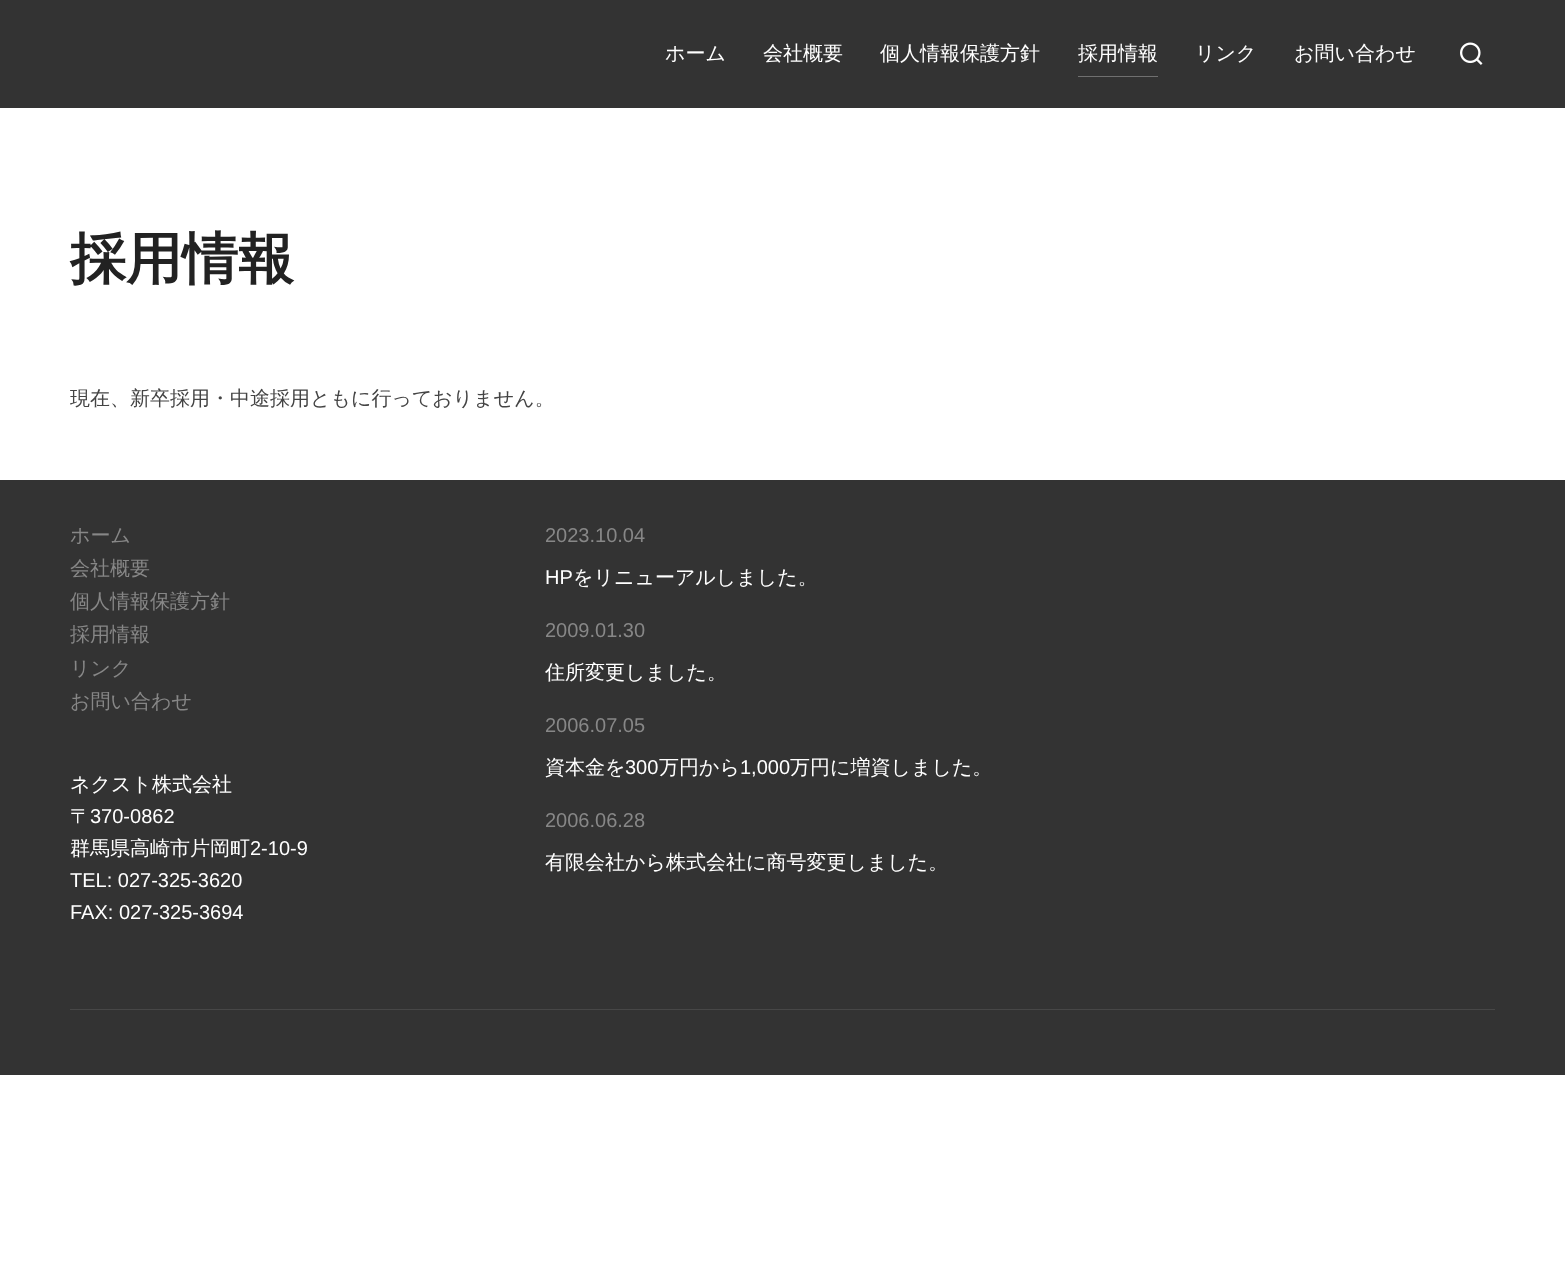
<?xml version="1.0" encoding="UTF-8"?>
<svg xmlns="http://www.w3.org/2000/svg" xmlns:xlink="http://www.w3.org/1999/xlink" width="1565" height="1269">
  <rect width="100%" height="100%" fill="#ffffff" />
  <rect width="1565" height="108" fill="#333333" />
  <rect x="1078" y="76" width="80" height="1" fill="#707070" />
  <image x="1460" y="42" width="23" height="23" xlink:href="image1.png" />
  <rect y="480" width="1565" height="595" fill="#333333" />
  <rect x="70" y="1009" width="1425" height="1" fill="#474747" />
  <text x="665" y="60" style="font-family: WenQuanYi Zen Hei; font-size: 20px; font-weight: 500; fill: #ffffff">ホーム</text>
  <text x="763" y="60" style="font-family: WenQuanYi Zen Hei; font-size: 20px; font-weight: 500; fill: #ffffff">会社概要</text>
  <text x="880" y="60" style="font-family: WenQuanYi Zen Hei; font-size: 20px; font-weight: 500; fill: #ffffff">個人情報保護方針</text>
  <text x="1078" y="60" style="font-family: WenQuanYi Zen Hei; font-size: 20px; font-weight: 500; fill: #ffffff">採用情報</text>
  <text x="1195" y="60" style="font-family: WenQuanYi Zen Hei; font-size: 20px; font-weight: 500; fill: #ffffff">リンク</text>
  <text x="1294" y="60" style="font-family: WenQuanYi Zen Hei; font-size: 20px; font-weight: 500; fill: #ffffff">お問い合わせ</text>
  <text x="70" y="278" style="font-family: WenQuanYi Zen Hei; font-size: 56px; font-weight: bold; fill: #222222">採用情報</text>
  <text x="70" y="405" style="font-family: WenQuanYi Zen Hei; font-size: 20px; font-weight: 500; fill: #444444">現在、新卒採用・中途採用ともに行っておりません。</text>
  <text x="70" y="542" style="font-family: WenQuanYi Zen Hei; font-size: 20px; font-weight: 500; fill: #878787">ホーム</text>
  <text x="70" y="575" style="font-family: WenQuanYi Zen Hei; font-size: 20px; font-weight: 500; fill: #878787">会社概要</text>
  <text x="70" y="608" style="font-family: WenQuanYi Zen Hei; font-size: 20px; font-weight: 500; fill: #878787">個人情報保護方針</text>
  <text x="70" y="641" style="font-family: WenQuanYi Zen Hei; font-size: 20px; font-weight: 500; fill: #878787">採用情報</text>
  <text x="70" y="675" style="font-family: WenQuanYi Zen Hei; font-size: 20px; font-weight: 500; fill: #878787">リンク</text>
  <text x="70" y="708" style="font-family: WenQuanYi Zen Hei; font-size: 20px; font-weight: 500; fill: #878787">お問い合わせ</text>
  <text x="70" y="791" style="font-family: WenQuanYi Zen Hei; font-size: 20px; font-weight: 500; fill: #ffffff">ネクスト株式会社</text>
  <text x="70" y="823" style="font-family: WenQuanYi Zen Hei; font-size: 20px; font-weight: 500; fill: #ffffff">〒</text>
  <text x="90" y="823" style="font-family: Liberation Sans; font-size: 20px; fill: #ffffff">370-0862</text>
  <text x="70" y="855" style="font-family: WenQuanYi Zen Hei; font-size: 20px; font-weight: 500; fill: #ffffff">群馬県高崎市片岡町</text>
  <text x="250" y="855" style="font-family: Liberation Sans; font-size: 20px; fill: #ffffff">2-10-9</text>
  <text x="70" y="887" style="font-family: Liberation Sans; font-size: 20px; fill: #ffffff">TEL: 027-325-3620</text>
  <text x="70" y="919" style="font-family: Liberation Sans; font-size: 20px; fill: #ffffff">FAX: 027-325-3694</text>
  <text x="545" y="542" style="font-family: Liberation Sans; font-size: 20px; fill: #878787">2023.10.04</text>
  <text x="545" y="584" style="font-family: Liberation Sans; font-size: 20px; fill: #ffffff">HP</text>
  <text x="573" y="584" style="font-family: WenQuanYi Zen Hei; font-size: 20px; font-weight: 500; fill: #ffffff">をリニューアルしました。</text>
  <text x="545" y="637" style="font-family: Liberation Sans; font-size: 20px; fill: #878787">2009.01.30</text>
  <text x="545" y="679" style="font-family: WenQuanYi Zen Hei; font-size: 20px; font-weight: 500; fill: #ffffff">住所変更しました。</text>
  <text x="545" y="732" style="font-family: Liberation Sans; font-size: 20px; fill: #878787">2006.07.05</text>
  <text x="545" y="774" style="font-family: WenQuanYi Zen Hei; font-size: 20px; font-weight: 500; fill: #ffffff">資本金を</text>
  <text x="625" y="774" style="font-family: Liberation Sans; font-size: 20px; fill: #ffffff">300</text>
  <text x="659" y="774" style="font-family: WenQuanYi Zen Hei; font-size: 20px; font-weight: 500; fill: #ffffff">万円から</text>
  <text x="740" y="774" style="font-family: Liberation Sans; font-size: 20px; fill: #ffffff">1,000</text>
  <text x="790" y="774" style="font-family: WenQuanYi Zen Hei; font-size: 20px; font-weight: 500; fill: #ffffff">万円に増資しました。</text>
  <text x="545" y="827" style="font-family: Liberation Sans; font-size: 20px; fill: #878787">2006.06.28</text>
  <text x="545" y="869" style="font-family: WenQuanYi Zen Hei; font-size: 20px; font-weight: 500; fill: #ffffff">有限会社から株式会社に商号変更しました。</text>
</svg>
